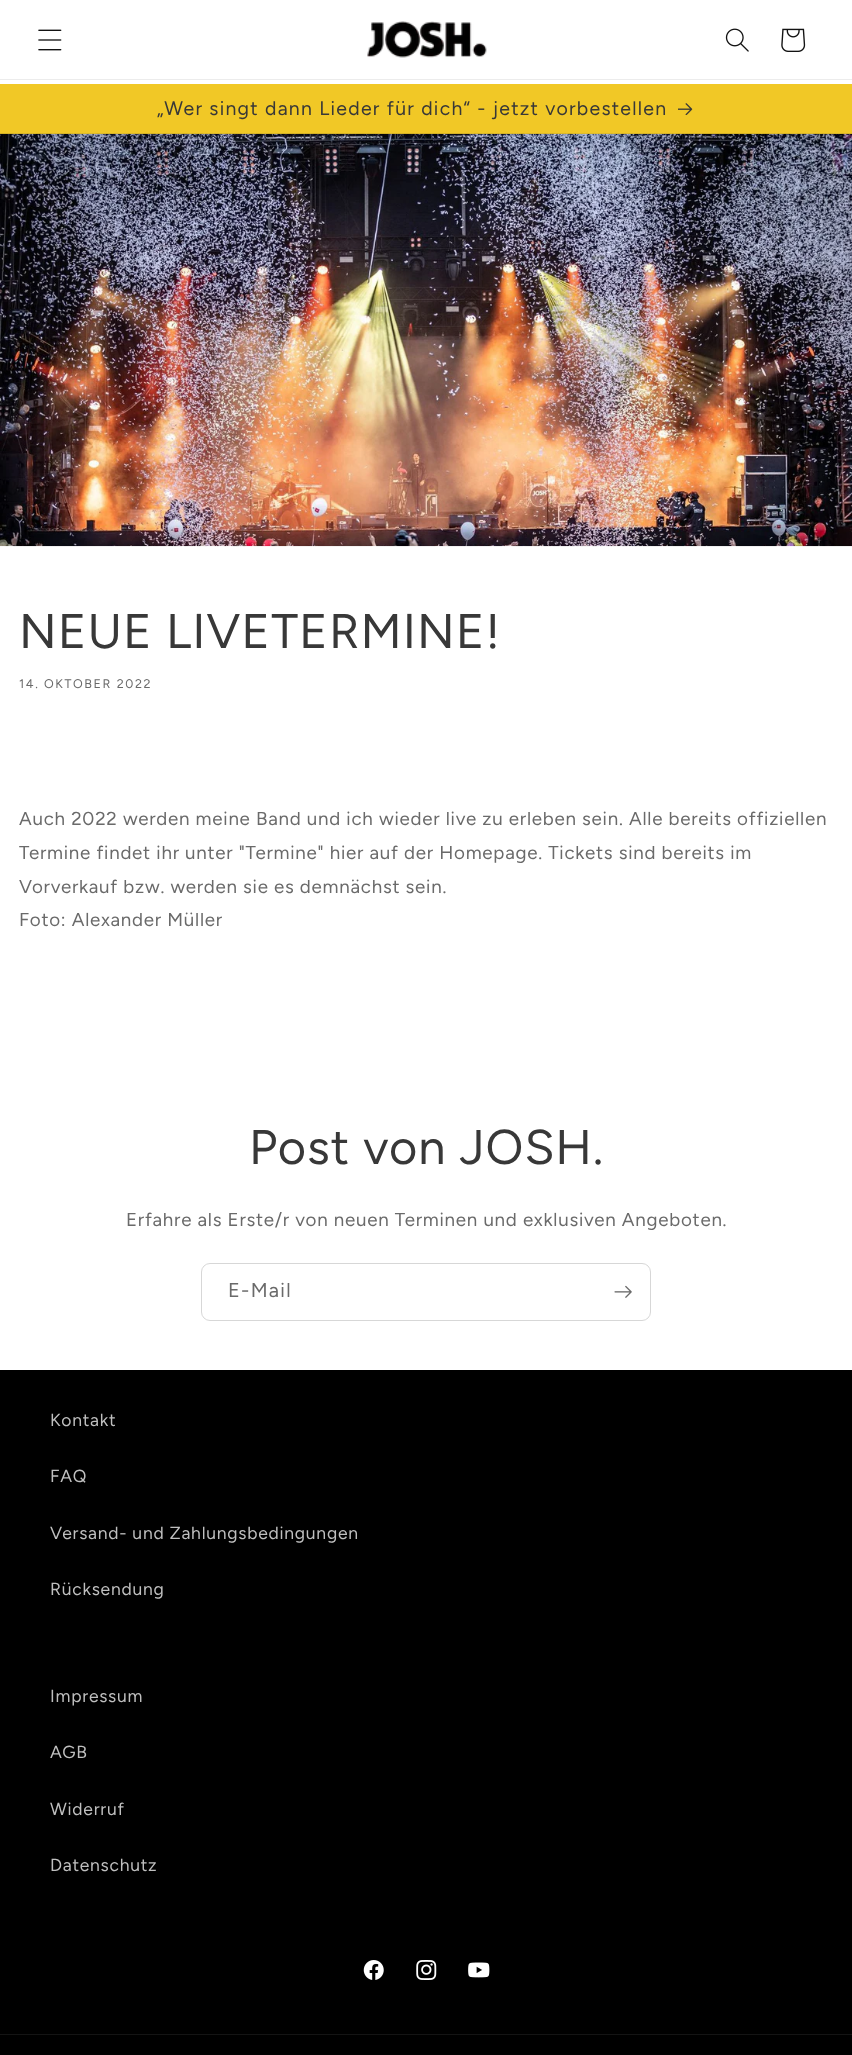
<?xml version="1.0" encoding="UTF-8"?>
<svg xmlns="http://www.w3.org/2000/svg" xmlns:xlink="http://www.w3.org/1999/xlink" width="852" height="2055">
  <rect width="100%" height="100%" fill="#ffffff" />
  <rect y="79" width="852" height="1" fill="#ececec" />
  <image x="38" y="29" width="24" height="22" xlink:href="image1.png" />
  <image x="367" y="21" width="120" height="37" xlink:href="image2.png" />
  <image x="725" y="28" width="24" height="24" xlink:href="image3.png" />
  <image x="781" y="28" width="25" height="24" xlink:href="image4.png" />
  <rect y="84" width="852" height="49" fill="#f1c826" />
  <rect y="133" width="852" height="1" fill="#e2bc27" />
  <image x="678" y="103" width="15" height="12" xlink:href="image5.png" />
  <image x="0" y="133" width="852" height="414" xlink:href="image6.png" />
  <rect x="201.5" y="1263.5" width="449" height="57" rx="8.5" fill="none" stroke="#d7d7d7" />
  <image x="614" y="1285" width="18" height="13" xlink:href="image7.png" />
  <rect y="1370" width="852" height="685" fill="#000000" />
  <image x="363" y="1960" width="21" height="20" xlink:href="image8.png" />
  <image x="416" y="1960" width="21" height="20" xlink:href="image9.png" />
  <image x="468" y="1962" width="22" height="16" xlink:href="image10.png" />
  <rect y="2034" width="852" height="1" fill="#141414" />
  <text x="157" y="115" style="font-family: Figtree; font-size: 19.5px; letter-spacing: 1.25px; fill: #383838">„Wer singt dann Lieder für dich“ - jetzt vorbestellen</text>
  <text x="19" y="648" style="font-family: Figtree; font-size: 48.75px; letter-spacing: 1px; fill: #383838">NEUE LIVETERMINE!</text>
  <text x="19" y="688" style="font-family: Figtree; font-size: 12.5px; letter-spacing: 1.6px; fill: #6a6a6a">14. OKTOBER 2022</text>
  <text x="19" y="825" style="font-family: Figtree; font-size: 18.75px; letter-spacing: 0.75px; fill: #6a6a6a">Auch 2022 werden meine Band und ich wieder live zu erleben sein. Alle bereits offiziellen</text>
  <text x="19" y="859" style="font-family: Figtree; font-size: 18.75px; letter-spacing: 0.75px; fill: #6a6a6a">Termine findet ihr unter "Termine" hier auf der Homepage. Tickets sind bereits im</text>
  <text x="19" y="893" style="font-family: Figtree; font-size: 18.75px; letter-spacing: 0.75px; fill: #6a6a6a">Vorverkauf bzw. werden sie es demnächst sein.</text>
  <text x="19" y="926" style="font-family: Figtree; font-size: 18.75px; letter-spacing: 0.75px; fill: #6a6a6a">Foto: Alexander Müller</text>
  <text x="249" y="1164" style="font-family: Figtree; font-size: 48.75px; letter-spacing: 1px; fill: #383838">Post von JOSH.</text>
  <text x="126" y="1226" style="font-family: Figtree; font-size: 18.75px; letter-spacing: 0.75px; fill: #6a6a6a">Erfahre als Erste/r von neuen Terminen und exklusiven Angeboten.</text>
  <text x="228" y="1297" style="font-family: Figtree; font-size: 20px; letter-spacing: 1.25px; fill: #6a6a6a">E-Mail</text>
  <text x="50" y="1426" style="font-family: Figtree; font-size: 17.5px; letter-spacing: 0.75px; fill: #bfbfbf">Kontakt</text>
  <text x="50" y="1482" style="font-family: Figtree; font-size: 17.5px; letter-spacing: 0.75px; fill: #bfbfbf">FAQ</text>
  <text x="50" y="1539" style="font-family: Figtree; font-size: 17.5px; letter-spacing: 0.75px; fill: #bfbfbf">Versand- und Zahlungsbedingungen</text>
  <text x="50" y="1595" style="font-family: Figtree; font-size: 17.5px; letter-spacing: 0.75px; fill: #bfbfbf">Rücksendung</text>
  <text x="50" y="1702" style="font-family: Figtree; font-size: 17.5px; letter-spacing: 0.75px; fill: #bfbfbf">Impressum</text>
  <text x="50" y="1758" style="font-family: Figtree; font-size: 17.5px; letter-spacing: 0.75px; fill: #bfbfbf">AGB</text>
  <text x="50" y="1815" style="font-family: Figtree; font-size: 17.5px; letter-spacing: 0.75px; fill: #bfbfbf">Widerruf</text>
  <text x="50" y="1871" style="font-family: Figtree; font-size: 17.5px; letter-spacing: 0.75px; fill: #bfbfbf">Datenschutz</text>
</svg>
